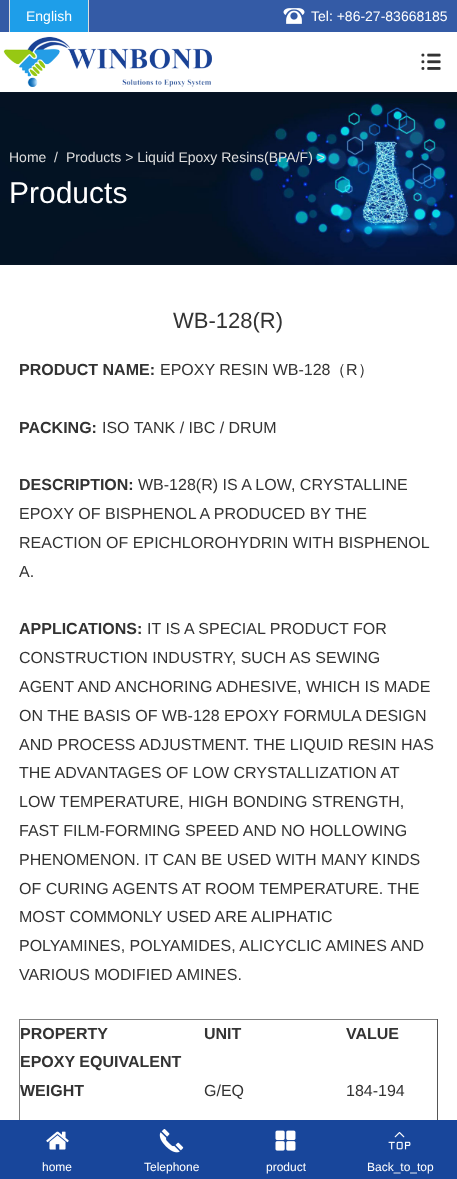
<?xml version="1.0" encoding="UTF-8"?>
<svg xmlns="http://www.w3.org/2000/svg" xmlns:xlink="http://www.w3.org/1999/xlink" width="457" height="1179">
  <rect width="100%" height="100%" fill="#ffffff" />
  <rect width="457" height="32" fill="#345ba6" />
  <rect x="10" width="78" height="32" fill="#1e9ee9" />
  <rect x="88" width="1" height="32" fill="#dddddd" />
  <rect x="9" width="1" height="32" fill="#dddddd" />
  <image x="283" y="8" width="22" height="16" xlink:href="image1.png" />
  <image x="3" y="36" width="209" height="51" xlink:href="image2.png" />
  <image x="421" y="53" width="20" height="17" xlink:href="image3.png" />
  <image x="0" y="92" width="457" height="173" xlink:href="image4.png" />
  <rect x="19" y="1019" width="419" height="1" fill="#808080" />
  <rect x="437" y="1019" width="1" height="101" fill="#555555" />
  <rect x="19" y="1019" width="1" height="101" fill="#808080" />
  <rect y="1120" width="457" height="59" fill="#18469b" />
  <image x="46" y="1131" width="23" height="19" xlink:href="image5.png" />
  <image x="159" y="1129" width="25" height="24" xlink:href="image6.png" />
  <image x="275" y="1130" width="21" height="21" xlink:href="image7.png" />
  <image x="388" y="1132" width="23" height="18" xlink:href="image8.png" />
  <text x="26" y="21" style="font-family: Liberation Sans; font-size: 14px; fill: #ffffff">English</text>
  <text x="311" y="21" style="font-family: Liberation Sans; font-size: 14px; fill: #ffffff">Tel: +86-27-83668185</text>
  <text x="9" y="162" style="font-family: Liberation Sans; font-size: 14px; fill: #dddddd">Home</text>
  <text x="54" y="162" style="font-family: Liberation Sans; font-size: 14px; fill: #dddddd">/</text>
  <text x="66" y="162" style="font-family: Liberation Sans; font-size: 14px; fill: #dddddd">Products &gt; Liquid Epoxy Resins(BPA/F) &gt;</text>
  <text x="9" y="203" style="font-family: Liberation Sans; font-size: 30px; fill: #ffffff">Products</text>
  <text x="173" y="328" style="font-family: Liberation Sans; font-size: 22px; fill: #333333">WB-128(R)</text>
  <text x="19" y="375" style="font-family: Liberation Sans; font-size: 16px; font-weight: bold; fill: #333333">PRODUCT NAME:</text>
  <text x="160" y="375" style="font-family: Liberation Sans; font-size: 16px; fill: #333333">EPOXY RESIN WB-128</text>
  <text x="330" y="375" style="font-family: WenQuanYi Zen Hei; font-size: 16px; font-weight: 500; fill: #333333">（</text>
  <text x="346" y="375" style="font-family: Liberation Sans; font-size: 16px; fill: #333333">R</text>
  <text x="358" y="375" style="font-family: WenQuanYi Zen Hei; font-size: 16px; font-weight: 500; fill: #333333">）</text>
  <text x="19" y="433" style="font-family: Liberation Sans; font-size: 16px; font-weight: bold; fill: #333333">PACKING:</text>
  <text x="102" y="433" style="font-family: Liberation Sans; font-size: 16px; fill: #333333">ISO TANK / IBC / DRUM</text>
  <text x="19" y="490" style="font-family: Liberation Sans; font-size: 16px; font-weight: bold; fill: #333333">DESCRIPTION:</text>
  <text x="138" y="490" style="font-family: Liberation Sans; font-size: 16px; fill: #333333">WB-128(R) IS A LOW, CRYSTALLINE</text>
  <text x="19" y="519" style="font-family: Liberation Sans; font-size: 16px; fill: #333333">EPOXY OF BISPHENOL A PRODUCED BY THE</text>
  <text x="19" y="548" style="font-family: Liberation Sans; font-size: 16px; fill: #333333">REACTION OF EPICHLOROHYDRIN WITH BISPHENOL</text>
  <text x="19" y="577" style="font-family: Liberation Sans; font-size: 16px; fill: #333333">A.</text>
  <text x="19" y="634" style="font-family: Liberation Sans; font-size: 16px; font-weight: bold; fill: #333333">APPLICATIONS:</text>
  <text x="147" y="634" style="font-family: Liberation Sans; font-size: 16px; fill: #333333">IT IS A SPECIAL PRODUCT FOR</text>
  <text x="19" y="663" style="font-family: Liberation Sans; font-size: 16px; fill: #333333">CONSTRUCTION INDUSTRY, SUCH AS SEWING</text>
  <text x="19" y="692" style="font-family: Liberation Sans; font-size: 16px; fill: #333333">AGENT AND ANCHORING ADHESIVE, WHICH IS MADE</text>
  <text x="19" y="721" style="font-family: Liberation Sans; font-size: 16px; fill: #333333">ON THE BASIS OF WB-128 EPOXY FORMULA DESIGN</text>
  <text x="19" y="750" style="font-family: Liberation Sans; font-size: 16px; fill: #333333">AND PROCESS ADJUSTMENT. THE LIQUID RESIN HAS</text>
  <text x="19" y="778" style="font-family: Liberation Sans; font-size: 16px; fill: #333333">THE ADVANTAGES OF LOW CRYSTALLIZATION AT</text>
  <text x="19" y="807" style="font-family: Liberation Sans; font-size: 16px; fill: #333333">LOW TEMPERATURE, HIGH BONDING STRENGTH,</text>
  <text x="19" y="836" style="font-family: Liberation Sans; font-size: 16px; fill: #333333">FAST FILM-FORMING SPEED AND NO HOLLOWING</text>
  <text x="19" y="865" style="font-family: Liberation Sans; font-size: 16px; fill: #333333">PHENOMENON. IT CAN BE USED WITH MANY KINDS</text>
  <text x="19" y="894" style="font-family: Liberation Sans; font-size: 16px; fill: #333333">OF CURING AGENTS AT ROOM TEMPERATURE. THE</text>
  <text x="19" y="922" style="font-family: Liberation Sans; font-size: 16px; fill: #333333">MOST COMMONLY USED ARE ALIPHATIC</text>
  <text x="19" y="951" style="font-family: Liberation Sans; font-size: 16px; fill: #333333">POLYAMINES, POLYAMIDES, ALICYCLIC AMINES AND</text>
  <text x="19" y="980" style="font-family: Liberation Sans; font-size: 16px; fill: #333333">VARIOUS MODIFIED AMINES.</text>
  <text x="20" y="1039" style="font-family: Liberation Sans; font-size: 16px; font-weight: bold; fill: #333333">PROPERTY</text>
  <text x="204" y="1039" style="font-family: Liberation Sans; font-size: 16px; font-weight: bold; fill: #333333">UNIT</text>
  <text x="346" y="1039" style="font-family: Liberation Sans; font-size: 16px; font-weight: bold; fill: #333333">VALUE</text>
  <text x="20" y="1067" style="font-family: Liberation Sans; font-size: 16px; font-weight: bold; fill: #333333">EPOXY EQUIVALENT</text>
  <text x="20" y="1096" style="font-family: Liberation Sans; font-size: 16px; font-weight: bold; fill: #333333">WEIGHT</text>
  <text x="204" y="1096" style="font-family: Liberation Sans; font-size: 16px; fill: #333333">G/EQ</text>
  <text x="346" y="1096" style="font-family: Liberation Sans; font-size: 16px; fill: #333333">184-194</text>
  <text x="42" y="1171" style="font-family: Liberation Sans; font-size: 12px; fill: #ffffff">home</text>
  <text x="144" y="1171" style="font-family: Liberation Sans; font-size: 12px; fill: #ffffff">Telephone</text>
  <text x="266" y="1171" style="font-family: Liberation Sans; font-size: 12px; fill: #ffffff">product</text>
  <text x="367" y="1171" style="font-family: Liberation Sans; font-size: 12px; fill: #ffffff">Back_to_top</text>
</svg>
